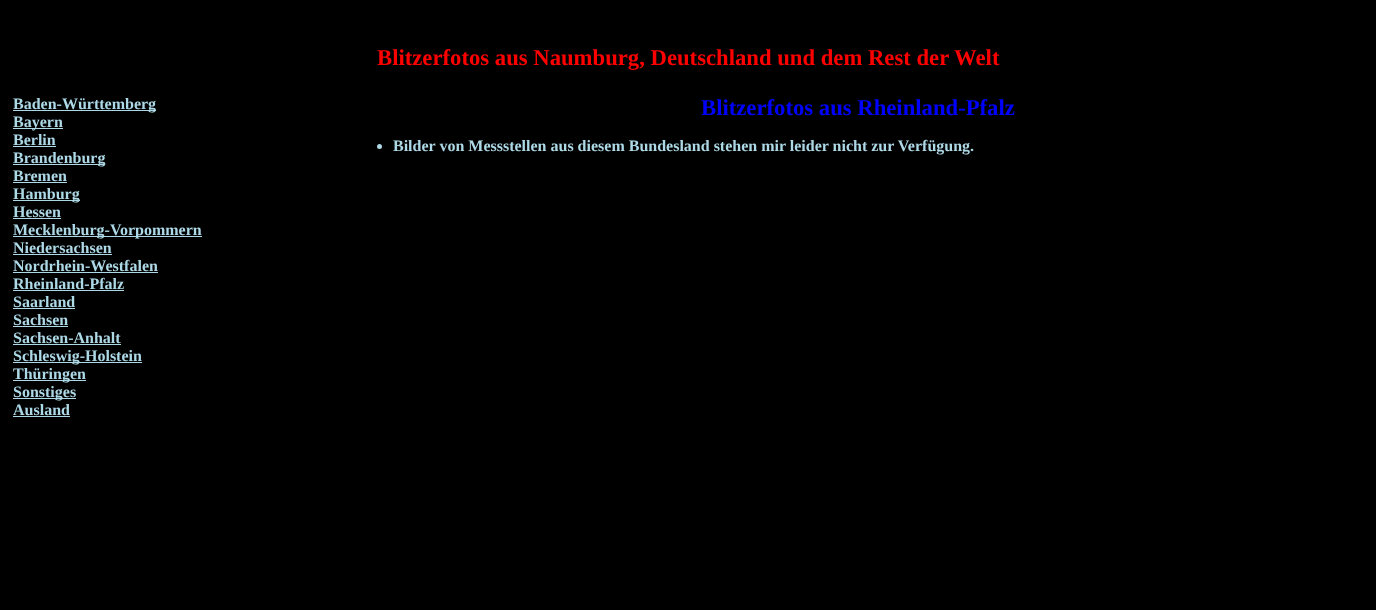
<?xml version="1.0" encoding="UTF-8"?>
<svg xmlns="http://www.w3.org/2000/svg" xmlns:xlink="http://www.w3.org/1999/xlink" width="1376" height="610">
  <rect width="100%" height="100%" fill="#000000" />
  <rect x="13" y="110" width="143" height="1" fill="#add8e6" />
  <rect x="13" y="128" width="50" height="1" fill="#add8e6" />
  <rect x="13" y="146" width="43" height="1" fill="#add8e6" />
  <rect x="13" y="164" width="92" height="1" fill="#add8e6" />
  <rect x="13" y="182" width="54" height="1" fill="#add8e6" />
  <rect x="13" y="200" width="67" height="1" fill="#add8e6" />
  <rect x="13" y="218" width="48" height="1" fill="#add8e6" />
  <rect x="13" y="236" width="189" height="1" fill="#add8e6" />
  <rect x="13" y="254" width="99" height="1" fill="#add8e6" />
  <rect x="13" y="272" width="145" height="1" fill="#add8e6" />
  <rect x="13" y="290" width="111" height="1" fill="#add8e6" />
  <rect x="13" y="308" width="62" height="1" fill="#add8e6" />
  <rect x="13" y="326" width="55" height="1" fill="#add8e6" />
  <rect x="13" y="344" width="108" height="1" fill="#add8e6" />
  <rect x="13" y="362" width="129" height="1" fill="#add8e6" />
  <rect x="13" y="380" width="73" height="1" fill="#add8e6" />
  <rect x="13" y="398" width="63" height="1" fill="#add8e6" />
  <rect x="13" y="416" width="57" height="1" fill="#add8e6" />
  <circle cx="379.5" cy="146.5" r="2.5" fill="#add8e6" />
  <text x="377" y="65" style="font-family: Liberation Serif; font-size: 22.7px; font-weight: bold; fill: #ff0000">Blitzerfotos aus Naumburg, Deutschland und dem Rest der Welt</text>
  <text x="13" y="109" style="font-family: Liberation Serif; font-size: 16px; font-weight: bold; fill: #add8e6">Baden-Württemberg</text>
  <text x="13" y="127" style="font-family: Liberation Serif; font-size: 16px; font-weight: bold; fill: #add8e6">Bayern</text>
  <text x="13" y="145" style="font-family: Liberation Serif; font-size: 16px; font-weight: bold; fill: #add8e6">Berlin</text>
  <text x="13" y="163" style="font-family: Liberation Serif; font-size: 16px; font-weight: bold; fill: #add8e6">Brandenburg</text>
  <text x="13" y="181" style="font-family: Liberation Serif; font-size: 16px; font-weight: bold; fill: #add8e6">Bremen</text>
  <text x="13" y="199" style="font-family: Liberation Serif; font-size: 16px; font-weight: bold; fill: #add8e6">Hamburg</text>
  <text x="13" y="217" style="font-family: Liberation Serif; font-size: 16px; font-weight: bold; fill: #add8e6">Hessen</text>
  <text x="13" y="235" style="font-family: Liberation Serif; font-size: 16px; font-weight: bold; fill: #add8e6">Mecklenburg-Vorpommern</text>
  <text x="13" y="253" style="font-family: Liberation Serif; font-size: 16px; font-weight: bold; fill: #add8e6">Niedersachsen</text>
  <text x="13" y="271" style="font-family: Liberation Serif; font-size: 16px; font-weight: bold; fill: #add8e6">Nordrhein-Westfalen</text>
  <text x="13" y="289" style="font-family: Liberation Serif; font-size: 16px; font-weight: bold; fill: #add8e6">Rheinland-Pfalz</text>
  <text x="13" y="307" style="font-family: Liberation Serif; font-size: 16px; font-weight: bold; fill: #add8e6">Saarland</text>
  <text x="13" y="325" style="font-family: Liberation Serif; font-size: 16px; font-weight: bold; fill: #add8e6">Sachsen</text>
  <text x="13" y="343" style="font-family: Liberation Serif; font-size: 16px; font-weight: bold; fill: #add8e6">Sachsen-Anhalt</text>
  <text x="13" y="361" style="font-family: Liberation Serif; font-size: 16px; font-weight: bold; fill: #add8e6">Schleswig-Holstein</text>
  <text x="13" y="379" style="font-family: Liberation Serif; font-size: 16px; font-weight: bold; fill: #add8e6">Thüringen</text>
  <text x="13" y="397" style="font-family: Liberation Serif; font-size: 16px; font-weight: bold; fill: #add8e6">Sonstiges</text>
  <text x="13" y="415" style="font-family: Liberation Serif; font-size: 16px; font-weight: bold; fill: #add8e6">Ausland</text>
  <text x="701" y="115" style="font-family: Liberation Serif; font-size: 22.7px; font-weight: bold; fill: #0000ff">Blitzerfotos aus Rheinland-Pfalz</text>
  <text x="393" y="151" style="font-family: Liberation Serif; font-size: 16px; font-weight: bold; fill: #add8e6">Bilder von Messstellen aus diesem Bundesland stehen mir leider nicht zur Verfügung.</text>
</svg>
